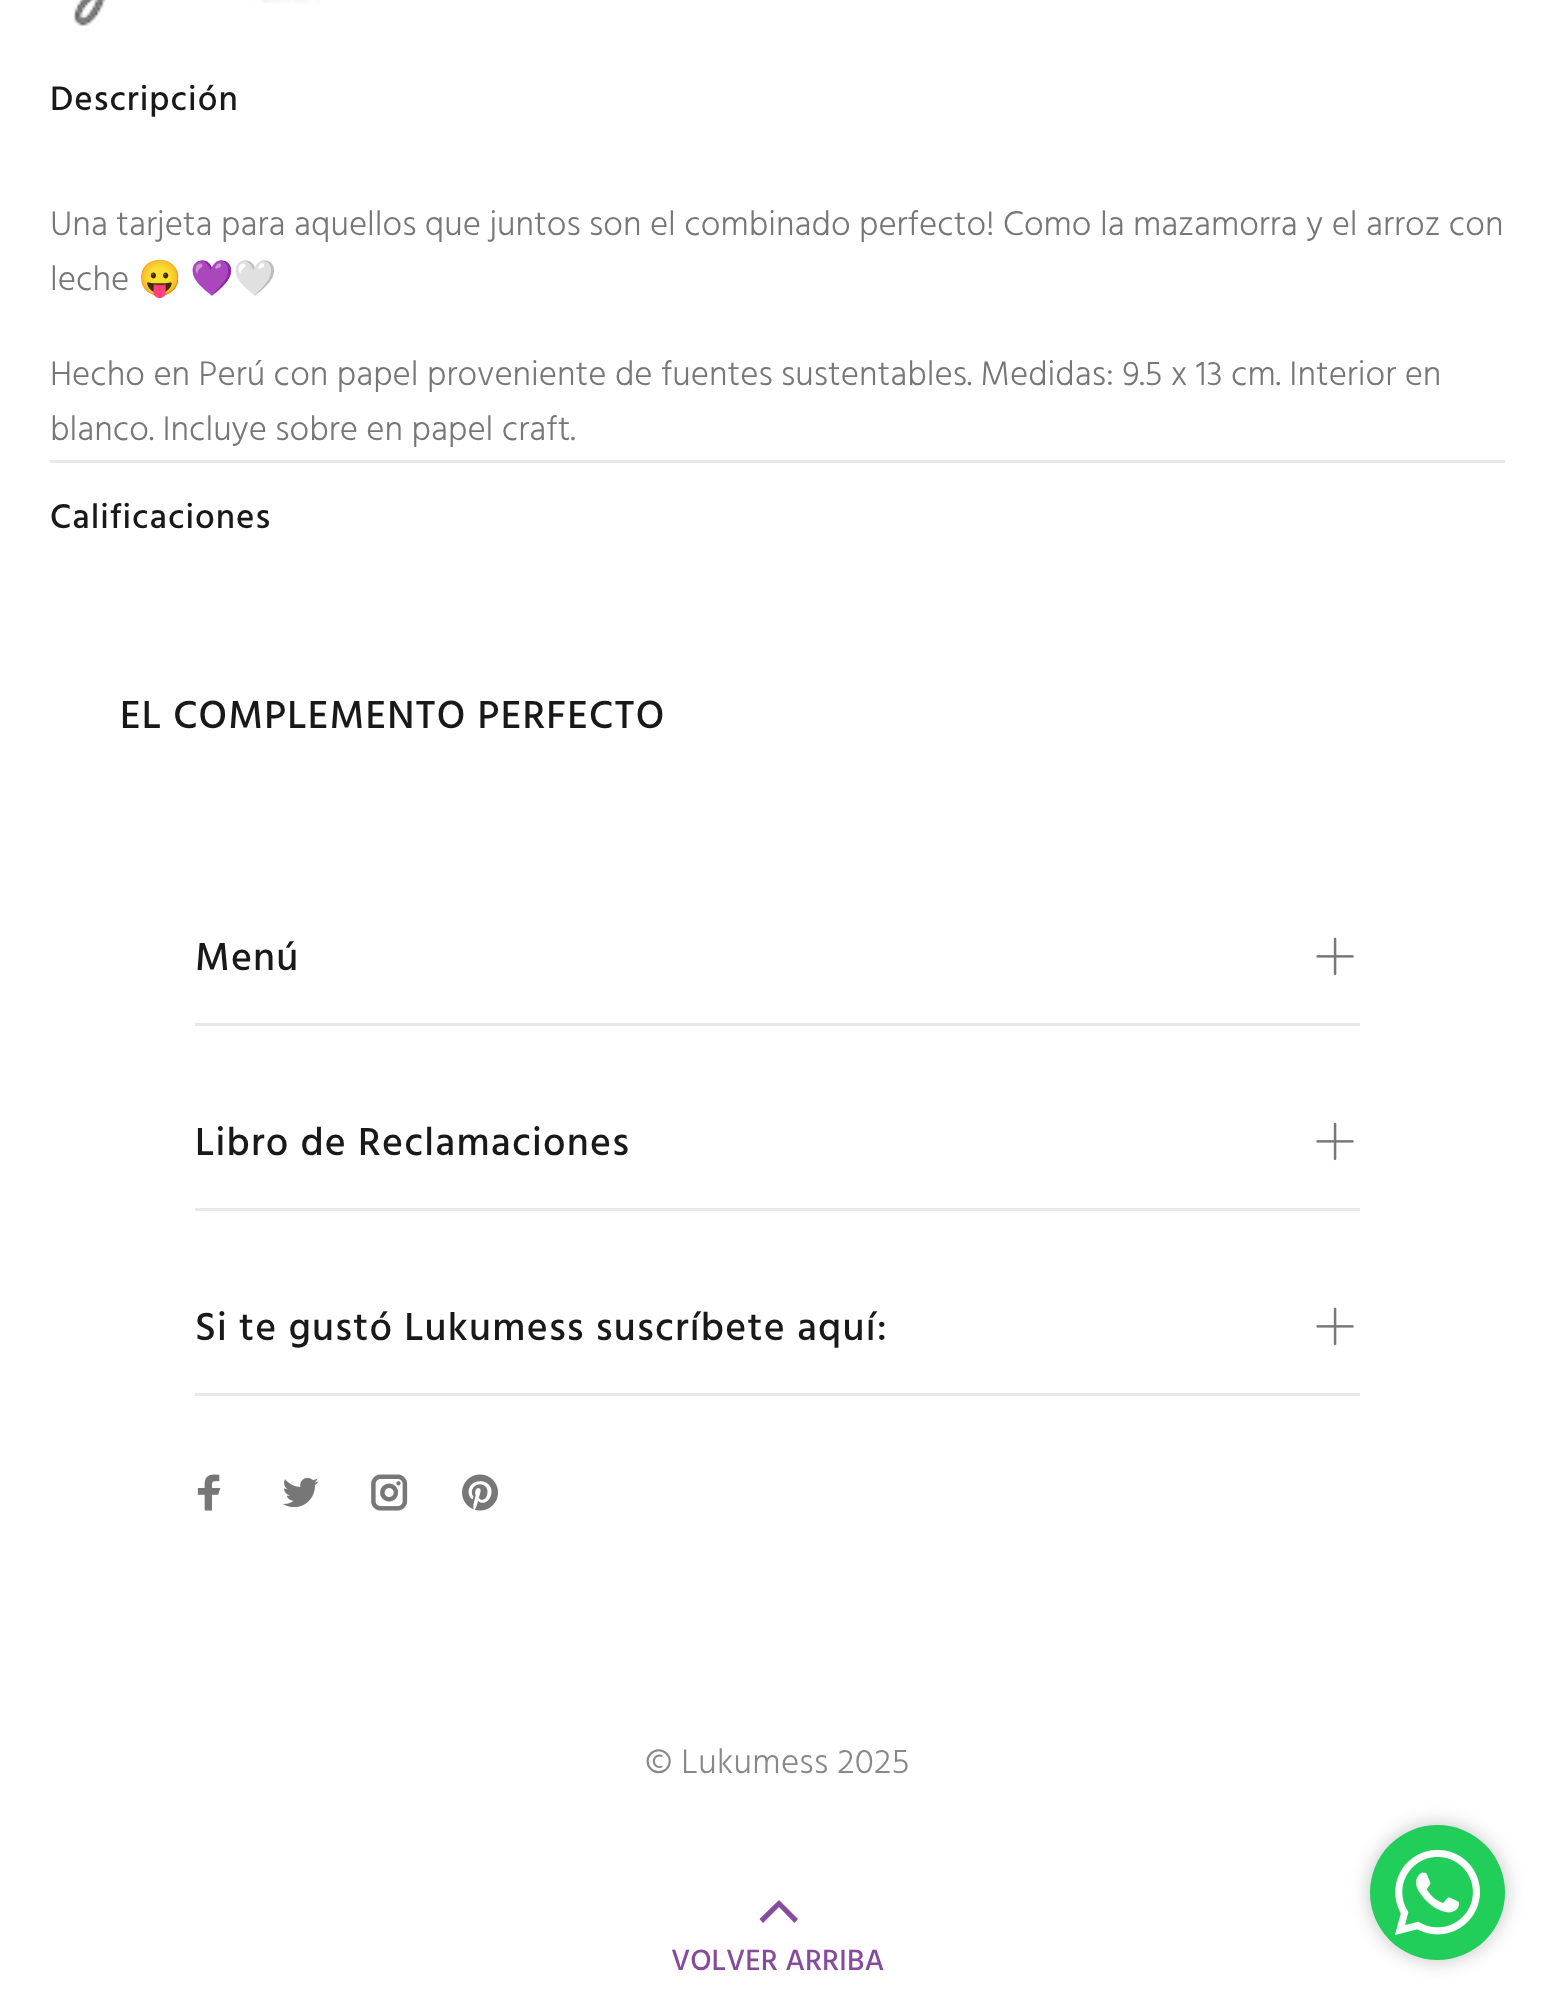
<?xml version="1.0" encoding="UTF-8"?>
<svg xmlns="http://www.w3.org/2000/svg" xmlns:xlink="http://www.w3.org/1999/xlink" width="1553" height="2010">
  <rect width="100%" height="100%" fill="#ffffff" />
  <image x="73" y="0" width="247" height="32" xlink:href="image1.png" />
  <rect x="50" y="460" width="1455" height="3" fill="#e9e7e7" />
  <rect x="195" y="1023" width="1165" height="3" fill="#e9e7e7" />
  <image x="1316" y="937" width="38" height="39" xlink:href="image2.png" />
  <rect x="195" y="1208" width="1165" height="3" fill="#e9e7e7" />
  <image x="1316" y="1122" width="38" height="39" xlink:href="image2.png" />
  <rect x="195" y="1393" width="1165" height="3" fill="#e9e7e7" />
  <image x="1316" y="1307" width="38" height="39" xlink:href="image2.png" />
  <image x="197" y="1474" width="24" height="37" xlink:href="image3.png" />
  <image x="282" y="1477" width="37" height="31" xlink:href="image4.png" />
  <image x="371" y="1474" width="37" height="37" xlink:href="image5.png" />
  <image x="462" y="1474" width="36" height="37" xlink:href="image6.png" />
  <path d="M 794.5 1923 l -15.5 -16 l -16 16 l -3.5 -4 l 19.5 -19 l 19 19 z" fill="#864b9d" />
  <rect x="1370" y="1825" width="135" height="135" rx="67.5" fill="#c2c2c2" filter="blur(10px)" />
  <circle cx="1437.5" cy="1892.5" r="67.5" fill="#22ce5a" />
  <image x="1395" y="1850" width="85" height="85" xlink:href="image7.png" />
  <text x="50" y="110" style="font-family: Hind; font-size: 35px; font-weight: 500; letter-spacing: 1px; fill: #191919">Descripción</text>
  <text x="50" y="235" style="font-family: Hind; font-size: 35px; font-weight: 300; fill: #777777">Una tarjeta para aquellos que juntos son el combinado perfecto! Como la mazamorra y el arroz con</text>
  <text x="50" y="290" style="font-family: Hind; font-size: 35px; font-weight: 300; fill: #777777">leche</text>
  <text x="138" y="290" style="font-family: Noto Color Emoji; font-size: 35px; fill: #777777">😛</text>
  <text x="190" y="290" style="font-family: Noto Color Emoji; font-size: 35px; fill: #777777">💜🤍</text>
  <text x="50" y="385" style="font-family: Hind; font-size: 35px; font-weight: 300; fill: #777777">Hecho en Perú con papel proveniente de fuentes sustentables. Medidas: 9.5 x 13 cm. Interior en</text>
  <text x="50" y="440" style="font-family: Hind; font-size: 35px; font-weight: 300; fill: #777777">blanco. Incluye sobre en papel craft.</text>
  <text x="50" y="528" style="font-family: Hind; font-size: 35px; font-weight: 500; letter-spacing: 1px; fill: #191919">Calificaciones</text>
  <text x="120" y="728" style="font-family: Hind; font-size: 40px; font-weight: 500; letter-spacing: 1.2px; fill: #191919">EL COMPLEMENTO PERFECTO</text>
  <text x="195" y="970" style="font-family: Hind; font-size: 40px; font-weight: 500; letter-spacing: 1.2px; fill: #191919">Menú</text>
  <text x="195" y="1155" style="font-family: Hind; font-size: 40px; font-weight: 500; letter-spacing: 1.2px; fill: #191919">Libro de Reclamaciones</text>
  <text x="195" y="1340" style="font-family: Hind; font-size: 40px; font-weight: 500; letter-spacing: 1.2px; fill: #191919">Si te gustó Lukumess suscríbete aquí:</text>
  <text x="645" y="1773" style="font-family: Hind; font-size: 35px; font-weight: 300; letter-spacing: 0.3px; fill: #888888">© Lukumess 2025</text>
  <text x="671" y="1970" style="font-family: Hind; font-size: 30px; font-weight: 500; fill: #864b9d">VOLVER ARRIBA</text>
</svg>
